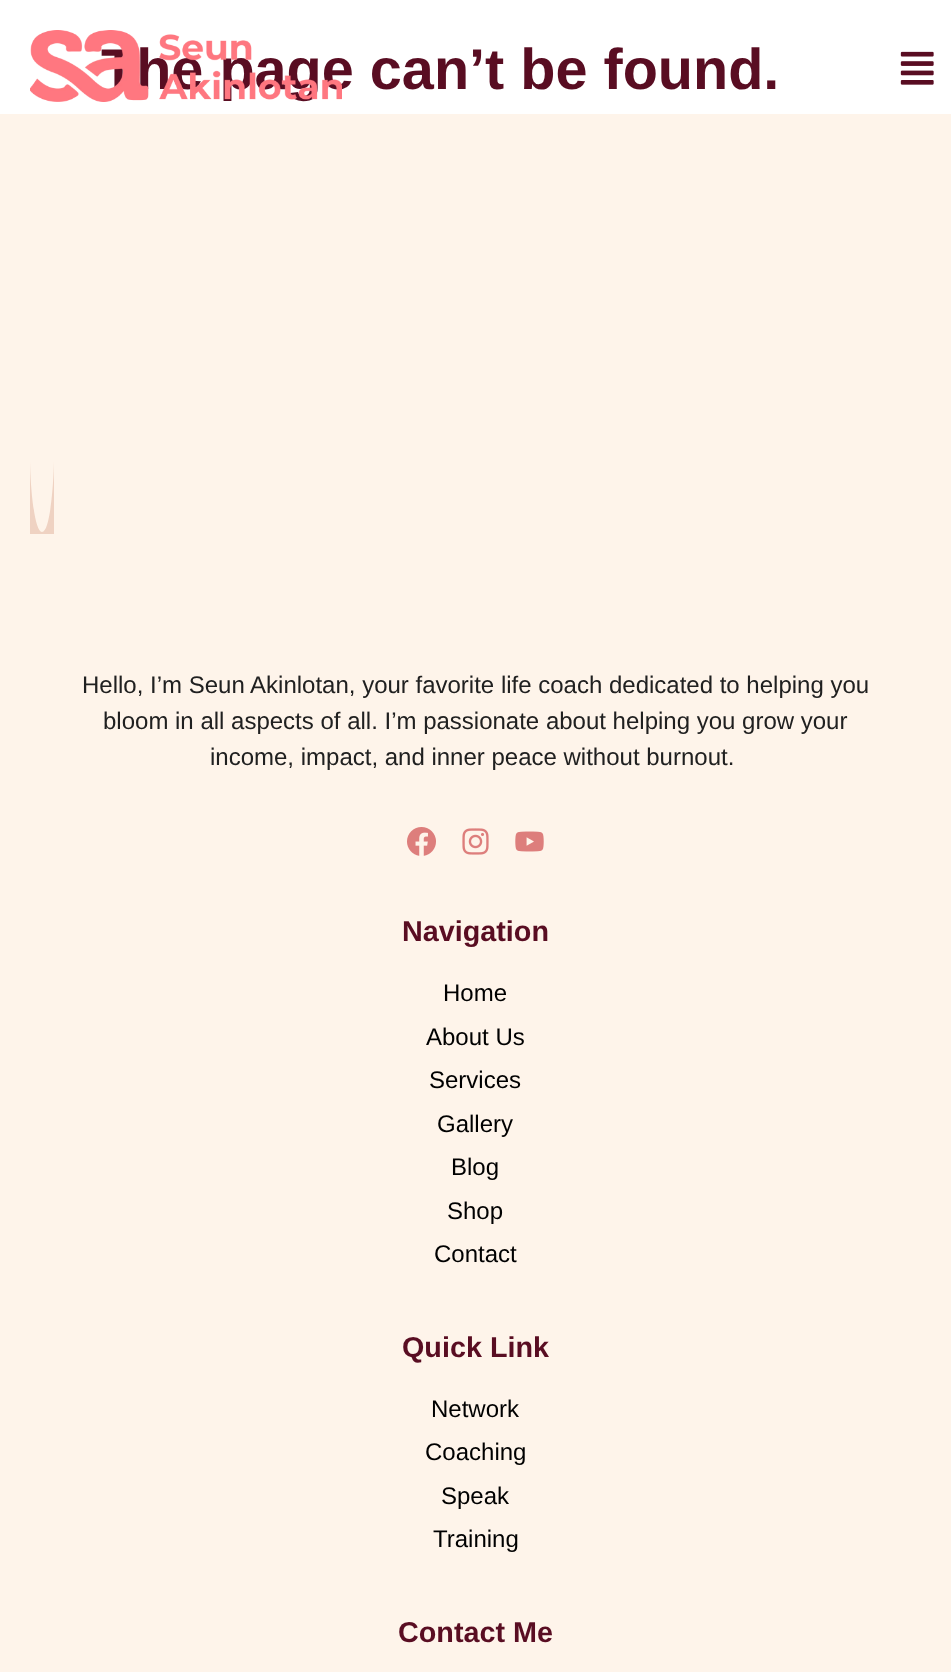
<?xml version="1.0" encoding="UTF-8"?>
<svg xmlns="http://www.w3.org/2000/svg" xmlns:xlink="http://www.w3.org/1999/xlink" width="951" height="1672">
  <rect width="100%" height="100%" fill="#ffffff" />
  <image x="900" y="51" width="34" height="34" xlink:href="image2.png" />
  <rect y="114" width="951" height="1558" fill="#fef4ea" />
  <path d="M 42 532 c -9 -1 -12 -58 -12 -73 v 75 h 24 v -74 c 0 14 -3 72 -12 72 z" fill="#efd2c2" />
  <image x="407" y="827" width="29" height="29" xlink:href="image3.png" />
  <image x="462" y="828" width="27" height="27" xlink:href="image4.png" />
  <image x="515" y="831" width="29" height="21" xlink:href="image5.png" />
  <text x="101" y="89" style="font-family: Liberation Sans; font-size: 57.6px; font-weight: bold; fill: #590d22">The page can’t be found.</text>
  <image x="30" y="30" width="312" height="72" xlink:href="image1.png" />
  <text x="82" y="693" style="font-family: Liberation Sans; font-size: 24px; fill: #202020">Hello, I’m Seun Akinlotan, your favorite life coach dedicated to helping you</text>
  <text x="103" y="729" style="font-family: Liberation Sans; font-size: 24px; fill: #202020">bloom in all aspects of all. I’m passionate about helping you grow your</text>
  <text x="210" y="765" style="font-family: Liberation Sans; font-size: 24px; fill: #202020">income, impact, and inner peace without burnout.</text>
  <text x="402" y="941" style="font-family: Liberation Sans; font-size: 28.75px; font-weight: bold; fill: #590d22">Navigation</text>
  <text x="443" y="1001" style="font-family: Liberation Sans; font-size: 24px; fill: #000000">Home</text>
  <text x="426" y="1045" style="font-family: Liberation Sans; font-size: 24px; fill: #000000">About Us</text>
  <text x="429" y="1088" style="font-family: Liberation Sans; font-size: 24px; fill: #000000">Services</text>
  <text x="437" y="1132" style="font-family: Liberation Sans; font-size: 24px; fill: #000000">Gallery</text>
  <text x="451" y="1175" style="font-family: Liberation Sans; font-size: 24px; fill: #000000">Blog</text>
  <text x="447" y="1219" style="font-family: Liberation Sans; font-size: 24px; fill: #000000">Shop</text>
  <text x="434" y="1262" style="font-family: Liberation Sans; font-size: 24px; fill: #000000">Contact</text>
  <text x="402" y="1357" style="font-family: Liberation Sans; font-size: 28.75px; font-weight: bold; fill: #590d22">Quick Link</text>
  <text x="431" y="1417" style="font-family: Liberation Sans; font-size: 24px; fill: #000000">Network</text>
  <text x="425" y="1460" style="font-family: Liberation Sans; font-size: 24px; fill: #000000">Coaching</text>
  <text x="441" y="1504" style="font-family: Liberation Sans; font-size: 24px; fill: #000000">Speak</text>
  <text x="433" y="1547" style="font-family: Liberation Sans; font-size: 24px; fill: #000000">Training</text>
  <text x="398" y="1642" style="font-family: Liberation Sans; font-size: 28.75px; font-weight: bold; fill: #590d22">Contact Me</text>
</svg>
